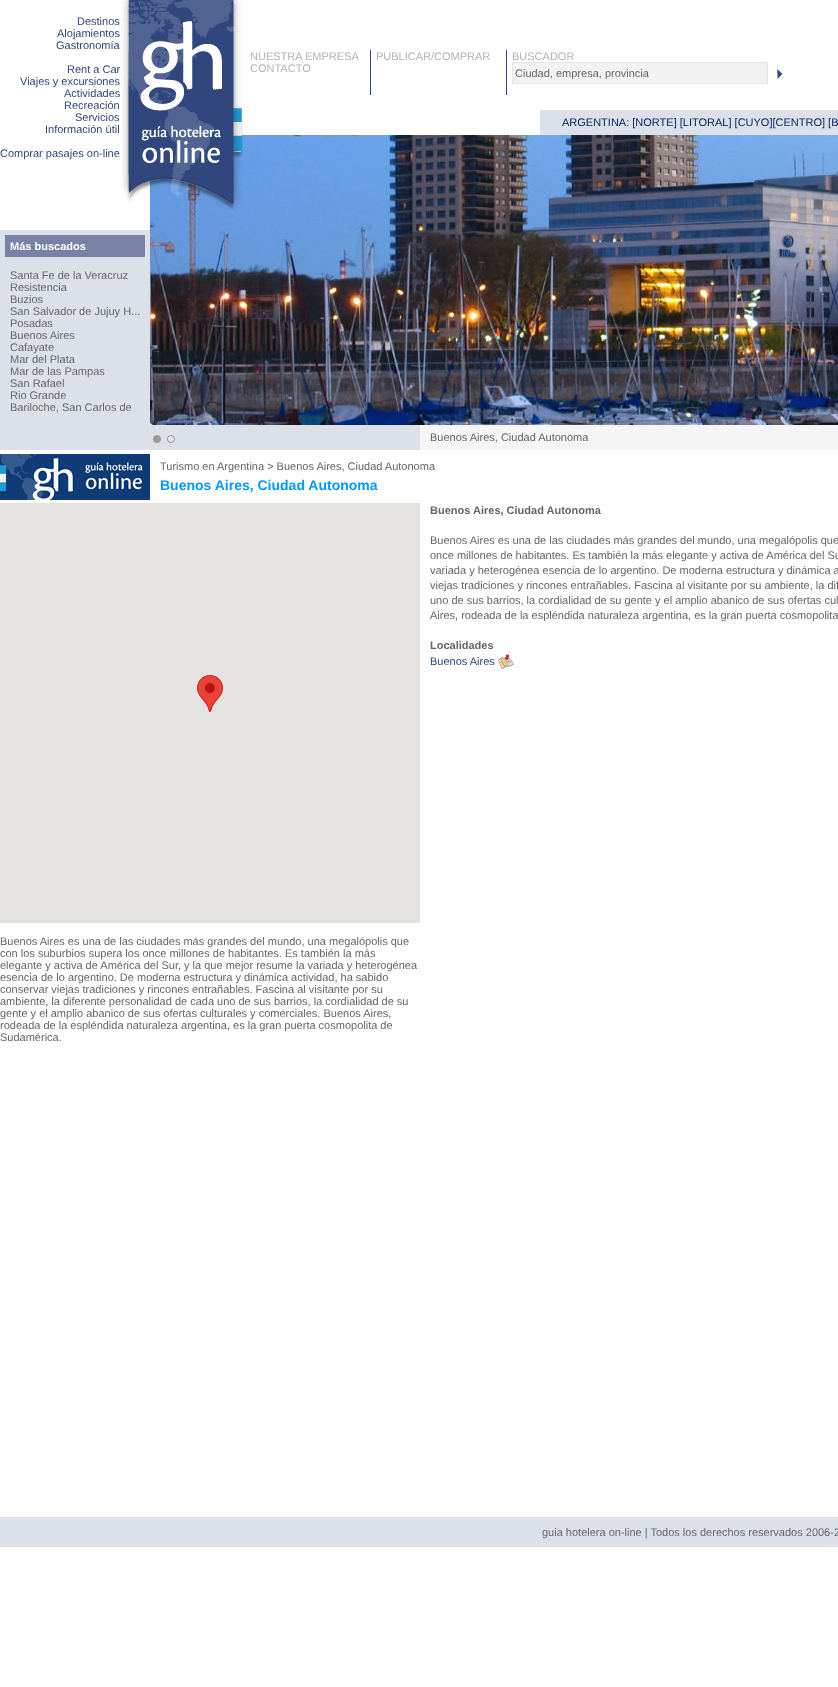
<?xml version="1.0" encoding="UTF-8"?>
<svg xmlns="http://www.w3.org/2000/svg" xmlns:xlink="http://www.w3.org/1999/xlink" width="838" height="1687">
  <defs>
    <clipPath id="clip1"><rect x="515" y="67" width="250" height="12" /></clipPath>
  </defs>
  <rect width="100%" height="100%" fill="#ffffff" />
  <rect y="230" width="150" height="220" fill="#dce0e9" />
  <rect x="5" y="235" width="140" height="22" fill="#7782a5" />
  <rect x="150" y="421" width="688" height="29" fill="#f5f5f5" />
  <image x="150" y="135" width="688" height="290" xlink:href="image3.png" />
  <image x="121" y="0" width="122" height="210" xlink:href="image1.png" />
  <rect x="370" y="50" width="1" height="45" fill="#30477d" />
  <rect x="506" y="50" width="1" height="45" fill="#30477d" />
  <rect x="512.5" y="62.5" width="255" height="21" fill="#f2f2f2" stroke="#e2e5ec" />
  <image x="777" y="69" width="6" height="10" xlink:href="image2.png" />
  <rect x="540" y="110" width="298" height="25" fill="#dce0e9" />
  <rect x="150" y="425" width="270" height="25" fill="#dce0e9" />
  <image x="153" y="435" width="8" height="8" xlink:href="image4.png" />
  <image x="167" y="435" width="8" height="8" xlink:href="image5.png" />
  <image x="0" y="454" width="150" height="46" xlink:href="image6.png" />
  <image x="498" y="654" width="16" height="16" xlink:href="image7.png" />
  <rect y="503" width="420" height="420" fill="#e5e3df" />
  <image x="197" y="675" width="26" height="37" xlink:href="image8.png" />
  <rect y="1517" width="838" height="30" fill="#dce0e9" />
  <text x="77" y="25" style="font-family: Liberation Sans; font-size: 11px; fill: #30477d">Destinos</text>
  <text x="57" y="37" style="font-family: Liberation Sans; font-size: 11px; fill: #30477d">Alojamientos</text>
  <text x="56" y="49" style="font-family: Liberation Sans; font-size: 11px; fill: #30477d">Gastronomía</text>
  <text x="67" y="73" style="font-family: Liberation Sans; font-size: 11px; fill: #30477d">Rent a Car</text>
  <text x="20" y="85" style="font-family: Liberation Sans; font-size: 11px; fill: #30477d">Viajes y excursiones</text>
  <text x="64" y="97" style="font-family: Liberation Sans; font-size: 11px; fill: #30477d">Actividades</text>
  <text x="64" y="109" style="font-family: Liberation Sans; font-size: 11px; fill: #30477d">Recreación</text>
  <text x="75" y="121" style="font-family: Liberation Sans; font-size: 11px; fill: #30477d">Servicios</text>
  <text x="45" y="133" style="font-family: Liberation Sans; font-size: 11px; fill: #30477d">Información útil</text>
  <text x="0" y="157" style="font-family: Liberation Sans; font-size: 11px; fill: #30477d">Comprar pasajes on-line</text>
  <text x="10" y="250" style="font-family: Liberation Sans; font-size: 11px; font-weight: bold; fill: #ffffff">Más buscados</text>
  <text x="10" y="279" style="font-family: Liberation Sans; font-size: 11px; fill: #666666">Santa Fe de la Veracruz</text>
  <text x="10" y="291" style="font-family: Liberation Sans; font-size: 11px; fill: #666666">Resistencia</text>
  <text x="10" y="303" style="font-family: Liberation Sans; font-size: 11px; fill: #666666">Buzios</text>
  <text x="10" y="315" style="font-family: Liberation Sans; font-size: 11px; fill: #666666">San Salvador de Jujuy H...</text>
  <text x="10" y="327" style="font-family: Liberation Sans; font-size: 11px; fill: #666666">Posadas</text>
  <text x="10" y="339" style="font-family: Liberation Sans; font-size: 11px; fill: #666666">Buenos Aires</text>
  <text x="10" y="351" style="font-family: Liberation Sans; font-size: 11px; fill: #666666">Cafayate</text>
  <text x="10" y="363" style="font-family: Liberation Sans; font-size: 11px; fill: #666666">Mar del Plata</text>
  <text x="10" y="375" style="font-family: Liberation Sans; font-size: 11px; fill: #666666">Mar de las Pampas</text>
  <text x="10" y="387" style="font-family: Liberation Sans; font-size: 11px; fill: #666666">San Rafael</text>
  <text x="10" y="399" style="font-family: Liberation Sans; font-size: 11px; fill: #666666">Rio Grande</text>
  <text x="10" y="411" style="font-family: Liberation Sans; font-size: 11px; fill: #666666">Bariloche, San Carlos de</text>
  <text x="250" y="60" style="font-family: Liberation Sans; font-size: 11px; fill: #b2b2b2">NUESTRA EMPRESA</text>
  <text x="250" y="72" style="font-family: Liberation Sans; font-size: 11px; fill: #b2b2b2">CONTACTO</text>
  <text x="376" y="60" style="font-family: Liberation Sans; font-size: 11px; fill: #b2b2b2">PUBLICAR/COMPRAR</text>
  <text x="512" y="60" style="font-family: Liberation Sans; font-size: 11px; fill: #b2b2b2">BUSCADOR</text>
  <g clip-path="url(#clip1)">
    <text x="515" y="77" style="font-family: Liberation Sans; font-size: 11px; fill: #666666">Ciudad, empresa, provincia</text>
  </g>
  <text x="562" y="126" style="font-family: Liberation Sans; font-size: 11px; fill: #001c5f">ARGENTINA: [NORTE] [LITORAL] [CUYO][CENTRO] [B</text>
  <text x="430" y="441" style="font-family: Liberation Sans; font-size: 11px; fill: #666666">Buenos Aires, Ciudad Autonoma</text>
  <text x="160" y="470" style="font-family: Liberation Sans; font-size: 11px; fill: #666666">Turismo en</text>
  <text x="217" y="470" style="font-family: Liberation Sans; font-size: 11px; fill: #666666">Argentina &gt; Buenos Aires, Ciudad Autonoma</text>
  <text x="160" y="490" style="font-family: Liberation Sans; font-size: 14px; font-weight: bold; fill: #0099ff">Buenos Aires, Ciudad Autonoma</text>
  <text x="430" y="514" style="font-family: Liberation Sans; font-size: 11px; font-weight: bold; fill: #666666">Buenos Aires, Ciudad Autonoma</text>
  <text x="430" y="544" style="font-family: Liberation Sans; font-size: 11px; fill: #666666">Buenos Aires es una de las ciudades más grandes del mundo, una megalópolis que</text>
  <text x="430" y="559" style="font-family: Liberation Sans; font-size: 11px; fill: #666666">once millones de habitantes. Es también la más elegante y activa de América del Su</text>
  <text x="430" y="574" style="font-family: Liberation Sans; font-size: 11px; fill: #666666">variada y heterogénea esencia de lo argentino. De moderna estructura y dinámica a</text>
  <text x="430" y="589" style="font-family: Liberation Sans; font-size: 11px; fill: #666666">viejas tradiciones y rincones entrañables. Fascina al visitante por su ambiente, la dif</text>
  <text x="430" y="604" style="font-family: Liberation Sans; font-size: 11px; fill: #666666">uno de sus barrios, la cordialidad de su gente y el amplio abanico de sus ofertas cul</text>
  <text x="430" y="619" style="font-family: Liberation Sans; font-size: 11px; fill: #666666">Aires, rodeada de la espléndida naturaleza argentina, es la gran puerta cosmopolita</text>
  <text x="430" y="649" style="font-family: Liberation Sans; font-size: 11px; font-weight: bold; fill: #666666">Localidades</text>
  <text x="430" y="665" style="font-family: Liberation Sans; font-size: 11px; fill: #30477d">Buenos Aires</text>
  <text x="0" y="945" style="font-family: Liberation Sans; font-size: 11px; fill: #666666">Buenos Aires es una de las ciudades más grandes del mundo, una megalópolis que</text>
  <text x="0" y="957" style="font-family: Liberation Sans; font-size: 11px; fill: #666666">con los suburbios supera los once millones de habitantes. Es también la más</text>
  <text x="0" y="969" style="font-family: Liberation Sans; font-size: 11px; fill: #666666">elegante y activa de América del Sur, y la que mejor resume la variada y heterogénea</text>
  <text x="0" y="981" style="font-family: Liberation Sans; font-size: 11px; fill: #666666">esencia de lo argentino. De moderna estructura y dinámica actividad, ha sabido</text>
  <text x="0" y="993" style="font-family: Liberation Sans; font-size: 11px; fill: #666666">conservar viejas tradiciones y rincones entrañables. Fascina al visitante por su</text>
  <text x="0" y="1005" style="font-family: Liberation Sans; font-size: 11px; fill: #666666">ambiente, la diferente personalidad de cada uno de sus barrios, la cordialidad de su</text>
  <text x="0" y="1017" style="font-family: Liberation Sans; font-size: 11px; fill: #666666">gente y el amplio abanico de sus ofertas culturales y comerciales. Buenos Aires,</text>
  <text x="0" y="1029" style="font-family: Liberation Sans; font-size: 11px; fill: #666666">rodeada de la espléndida naturaleza argentina, es la gran puerta cosmopolita de</text>
  <text x="0" y="1041" style="font-family: Liberation Sans; font-size: 11px; fill: #666666">Sudamérica.</text>
  <text x="542" y="1536" style="font-family: Liberation Sans; font-size: 11px; fill: #666666">guia hotelera on-line | Todos los derechos reservados 2006-2</text>
</svg>
